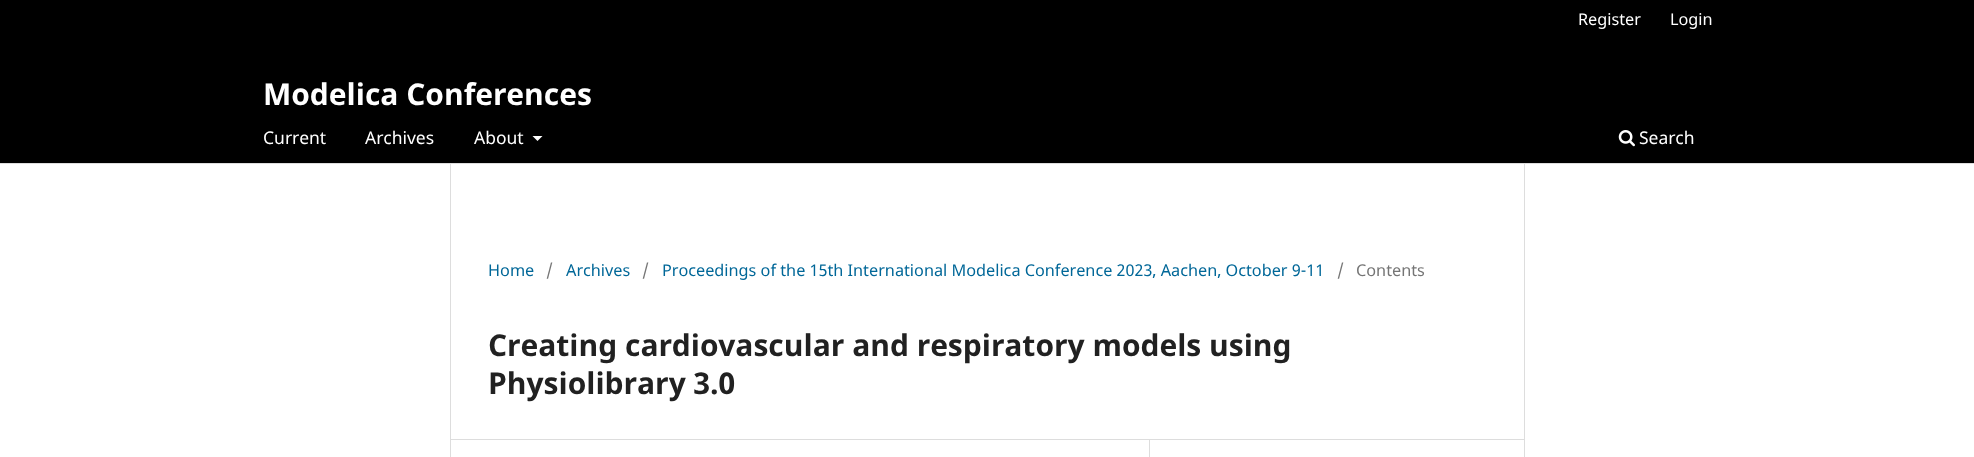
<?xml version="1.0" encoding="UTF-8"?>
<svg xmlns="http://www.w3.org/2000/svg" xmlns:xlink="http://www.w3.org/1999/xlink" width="1974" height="457">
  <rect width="100%" height="100%" fill="#ffffff" />
  <rect width="1974" height="163" fill="#000000" />
  <rect y="163" width="1974" height="1" fill="#dddddd" />
  <path d="M 532.5 136 h 10 l -5 5 z" fill="#ffffff" />
  <image x="1618" y="130" width="17" height="17" xlink:href="image1.png" />
  <rect x="450" y="439" width="1075" height="1" fill="#dddddd" />
  <rect x="450" y="164" width="1" height="293" fill="#dddddd" />
  <rect x="1149" y="440" width="1" height="17" fill="#dddddd" />
  <rect x="1524" y="164" width="1" height="293" fill="#dddddd" />
  <text x="1578" y="25" style="font-family: Noto Sans; font-size: 16.25px; fill: #ffffff">Register</text>
  <text x="1670" y="25" style="font-family: Noto Sans; font-size: 16.25px; fill: #ffffff">Login</text>
  <text x="263" y="144" style="font-family: Noto Sans; font-size: 17.5px; fill: #ffffff">Current</text>
  <text x="365" y="144" style="font-family: Noto Sans; font-size: 17.5px; fill: #ffffff">Archives</text>
  <text x="474" y="144" style="font-family: Noto Sans; font-size: 17.5px; fill: #ffffff">About</text>
  <text x="1639" y="144" style="font-family: Noto Sans; font-size: 17.5px; fill: #ffffff">Search</text>
  <text x="263" y="105" style="font-family: Noto Sans; font-size: 30px; font-weight: bold; fill: #ffffff">Modelica Conferences</text>
  <text x="488" y="276" style="font-family: Noto Sans; font-size: 16.25px; fill: #006798">Home</text>
  <text x="546" y="276" style="font-family: Noto Sans; font-size: 16.25px; fill: #757575">/</text>
  <text x="566" y="276" style="font-family: Noto Sans; font-size: 16.25px; fill: #006798">Archives</text>
  <text x="642" y="276" style="font-family: Noto Sans; font-size: 16.25px; fill: #757575">/</text>
  <text x="662" y="276" style="font-family: Noto Sans; font-size: 16.25px; fill: #006798">Proceedings of the 15th International Modelica Conference 2023, Aachen, October 9-11</text>
  <text x="1337" y="276" style="font-family: Noto Sans; font-size: 16.25px; fill: #757575">/</text>
  <text x="1356" y="276" style="font-family: Noto Sans; font-size: 16.25px; fill: #757575">Contents</text>
  <text x="488" y="356" style="font-family: Noto Sans; font-size: 30px; font-weight: bold; fill: #212121">Creating cardiovascular and respiratory models using</text>
  <text x="488" y="394" style="font-family: Noto Sans; font-size: 30px; font-weight: bold; fill: #212121">Physiolibrary 3.0</text>
</svg>
